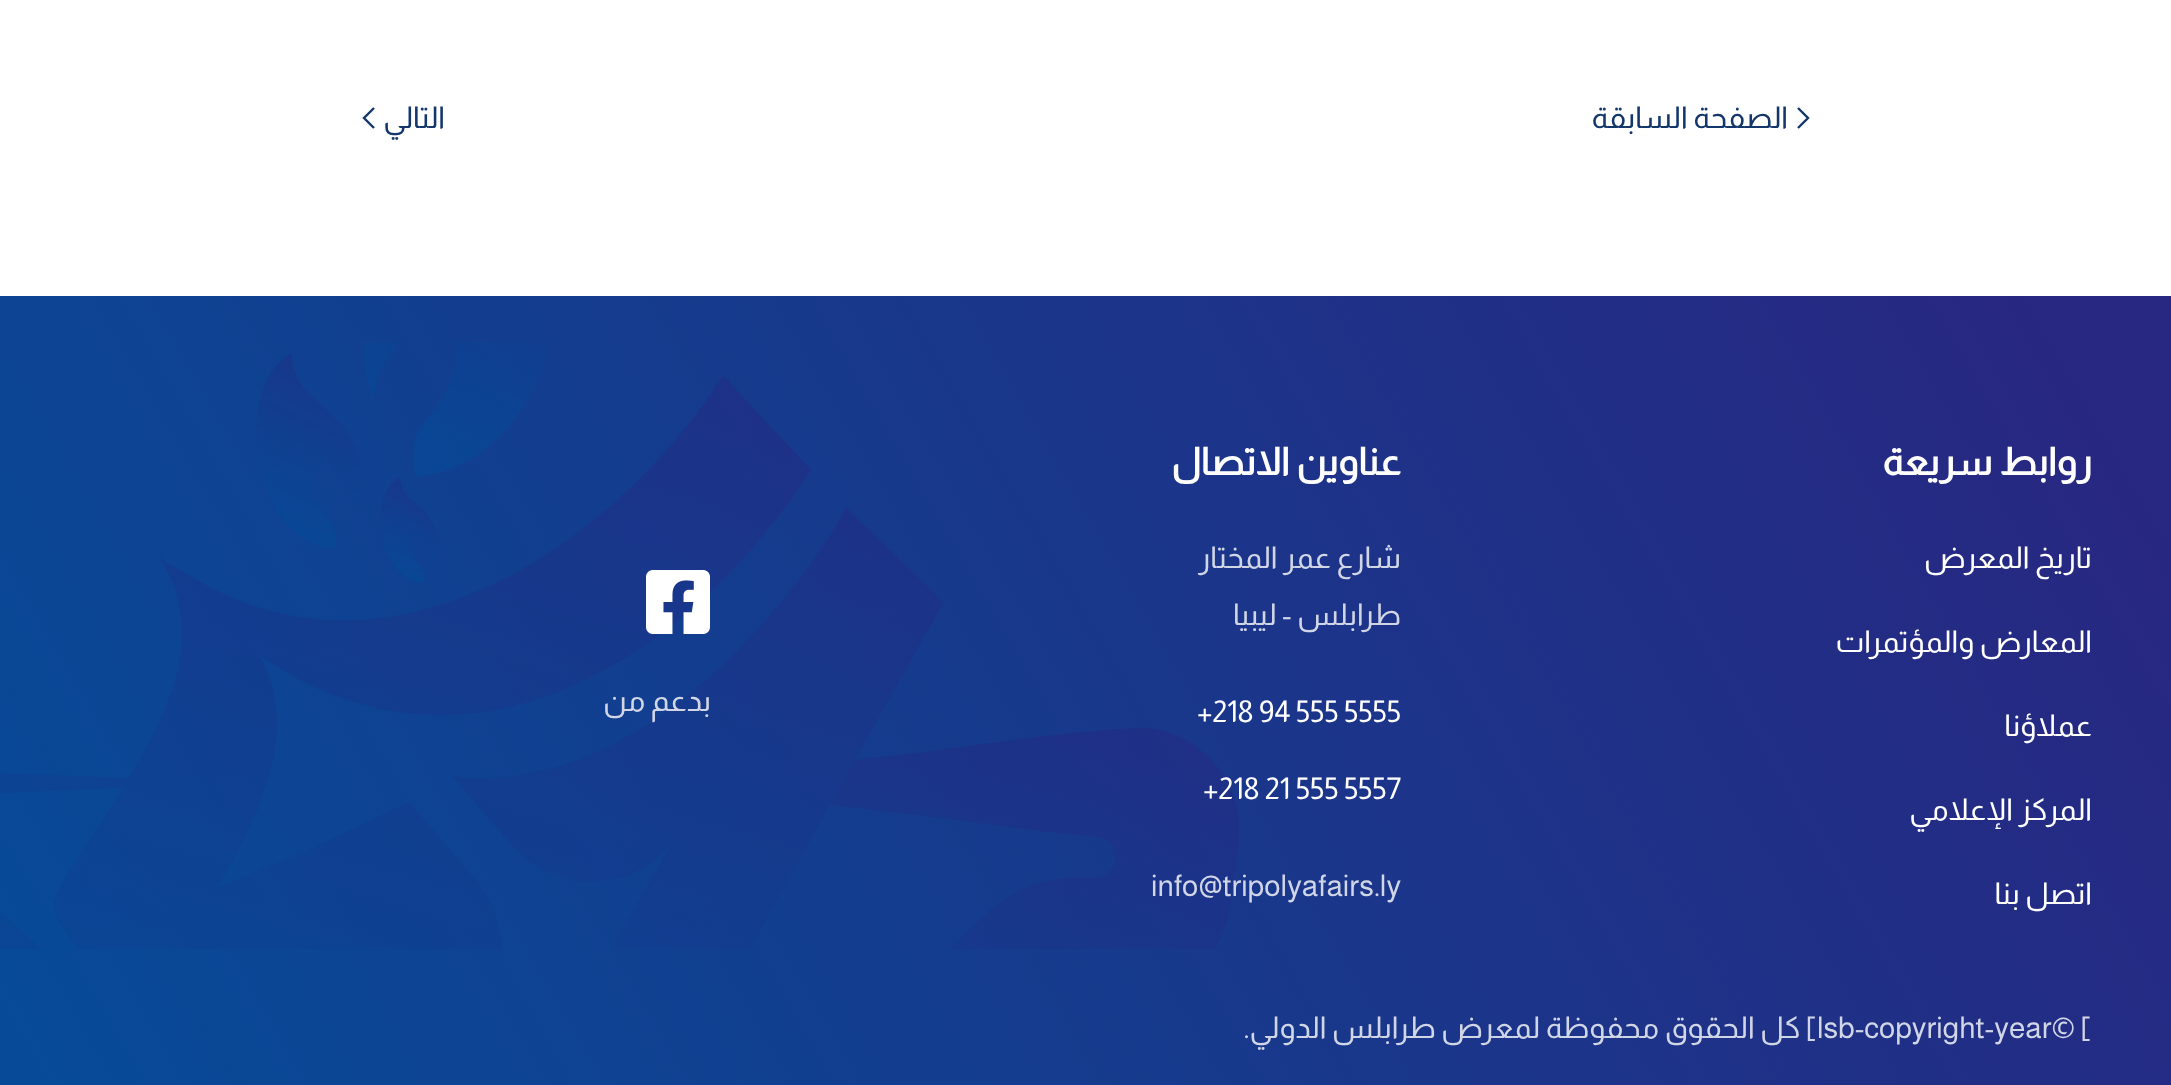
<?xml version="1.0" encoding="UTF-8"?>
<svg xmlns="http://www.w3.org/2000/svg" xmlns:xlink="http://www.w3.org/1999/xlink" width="2171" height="1085">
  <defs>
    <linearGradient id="g1" gradientUnits="userSpaceOnUse" x1="2072" y1="122" x2="-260" y2="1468"><stop offset="0.04" stop-color="#282781" /><stop offset="1" stop-color="#00529c" /></linearGradient>
  </defs>
  <rect width="100%" height="100%" fill="#ffffff" />
  <path d="M 1798 108 l 10 10 l -10 10" fill="none" stroke="#13376b" stroke-width="2.4" />
  <path d="M 374 108 l -10 10 l 10 10" fill="none" stroke="#13376b" stroke-width="2.4" />
  <rect y="296" width="2171" height="789" fill="url(#g1)" />
  <image x="0" y="342" width="1239" height="607" xlink:href="image1.png" />
  <image x="646" y="570" width="64" height="64" xlink:href="image2.png" />
  <text x="1788" y="128" style="font-family: Almarai; font-size: 30px; direction: rtl; fill: #13376b">الصفحة السابقة</text>
  <text x="445" y="128" style="font-family: Almarai; font-size: 30px; direction: rtl; fill: #13376b">التالي</text>
  <text x="2092" y="475" style="font-family: Almarai; font-size: 38px; font-weight: bold; direction: rtl; fill: #ffffff">روابط سريعة</text>
  <text x="2092" y="568" style="font-family: Almarai; font-size: 30px; direction: rtl; fill: #ffffff">تاريخ المعرض</text>
  <text x="2092" y="652" style="font-family: Almarai; font-size: 30px; direction: rtl; fill: #ffffff">المعارض والمؤتمرات</text>
  <text x="2092" y="736" style="font-family: Almarai; font-size: 30px; direction: rtl; fill: #ffffff">عملاؤنا</text>
  <text x="2092" y="820" style="font-family: Almarai; font-size: 30px; direction: rtl; fill: #ffffff">المركز الإعلامي</text>
  <text x="2092" y="904" style="font-family: Almarai; font-size: 30px; direction: rtl; fill: #ffffff">اتصل بنا</text>
  <text x="1401" y="475" style="font-family: Almarai; font-size: 38px; font-weight: bold; direction: rtl; fill: #ffffff">عناوين الاتصال</text>
  <text x="1401" y="568" style="font-family: Almarai; font-size: 30px; direction: rtl; fill: #d1d6e7">شارع عمر المختار</text>
  <text x="1401" y="625" style="font-family: Almarai; font-size: 30px; direction: rtl; fill: #d1d6e7">طرابلس - ليبيا</text>
  <text x="1197" y="722" style="font-family: Almarai; font-size: 30px; fill: #ffffff">+218 94 555 5555</text>
  <text x="1203" y="799" style="font-family: Almarai; font-size: 30px; fill: #ffffff">+218 21 555 5557</text>
  <text x="1151" y="896" style="font-family: Almarai; font-size: 30px; fill: #d1d6e7">info@tripolyafairs.ly</text>
  <text x="711" y="711" style="font-family: Almarai; font-size: 30px; direction: rtl; fill: #d1d6e7">بدعم من</text>
  <text x="1817" y="1038" style="font-family: Almarai; font-size: 30px; fill: #d1d6e7">lsb-copyright-year© [</text>
  <text x="1817" y="1038" style="font-family: Almarai; font-size: 30px; direction: rtl; fill: #d1d6e7">] كل الحقوق محفوظة لمعرض طرابلس الدولي.</text>
</svg>
